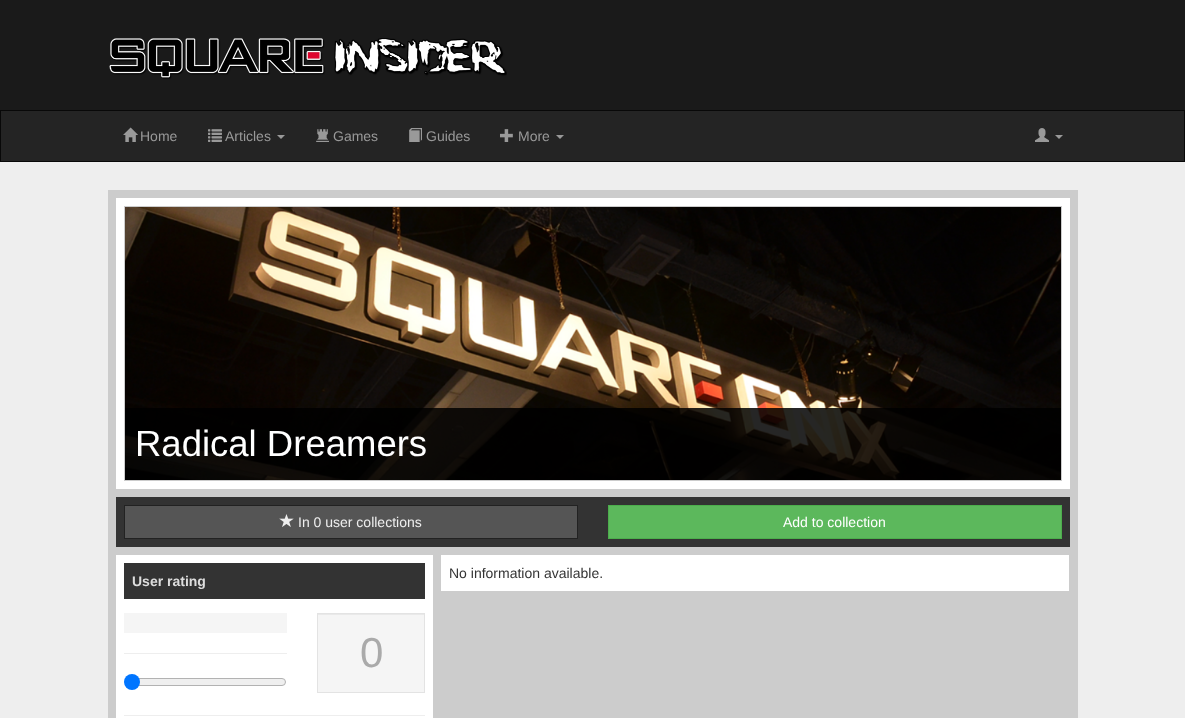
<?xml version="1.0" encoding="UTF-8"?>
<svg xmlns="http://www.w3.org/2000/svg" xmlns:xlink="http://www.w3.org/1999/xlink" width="1185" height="718">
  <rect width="100%" height="100%" fill="#1a1a1a" />
  <image x="109" y="38" width="398" height="41" xlink:href="image1.png" />
  <rect x="0.5" y="110.5" width="1184" height="51" fill="#242424" stroke="#080808" />
  <image x="123" y="127" width="15" height="15" xlink:href="image2.png" />
  <image x="208" y="129" width="14" height="13" xlink:href="image3.png" />
  <path d="M 277 135 h 8 l -4 4 z" fill="#999999" />
  <image x="316" y="129" width="13" height="13" xlink:href="image4.png" />
  <image x="409" y="128" width="13" height="14" xlink:href="image5.png" />
  <image x="500" y="129" width="13" height="13" xlink:href="image6.png" />
  <path d="M 556 135 h 8 l -4 4 z" fill="#999999" />
  <image x="1035" y="128" width="14" height="14" xlink:href="image7.png" />
  <path d="M 1055 135 h 8 l -4 4 z" fill="#999999" />
  <rect y="162" width="1185" height="556" fill="#eeeeee" />
  <rect x="108" y="190" width="970" height="528" fill="#cccccc" />
  <rect x="116" y="198" width="954" height="291" fill="#ffffff" />
  <rect x="124.5" y="206.5" width="937" height="274" fill="none" stroke="#cccccc" />
  <image x="125" y="207" width="936" height="273" xlink:href="image8.png" />
  <rect x="125" y="408" width="936" height="72" fill="#000000" fill-opacity="0.85" />
  <rect x="116" y="497" width="954" height="50" fill="#333333" />
  <rect x="124.5" y="505.5" width="453" height="33" fill="#555555" stroke="#222222" />
  <image x="279" y="514" width="15" height="13" xlink:href="image9.png" />
  <rect x="608.5" y="505.5" width="453" height="33" fill="#5cb85c" stroke="#4cae4c" />
  <rect x="441" y="555" width="628" height="36" fill="#ffffff" />
  <rect x="116" y="555" width="317" height="163" fill="#ffffff" />
  <rect x="124" y="563" width="301" height="36" fill="#333333" />
  <rect x="124" y="613" width="163" height="20" fill="#f5f5f5" />
  <rect x="124" y="653" width="163" height="1" fill="#eeeeee" />
  <rect x="125.5" y="678.5" width="160" height="7" rx="3.5" fill="#efefef" stroke="#b2b2b2" />
  <circle cx="132" cy="682" r="8" fill="#0075ff" />
  <rect x="318" y="615" width="106" height="77" fill="#f5f5f5" />
  <rect x="318" y="614" width="106" height="1" fill="#e9e9e9" />
  <rect x="317.5" y="613.5" width="107" height="79" fill="none" stroke="#e3e3e3" />
  <rect x="124" y="715" width="301" height="1" fill="#eeeeee" />
  <text x="140" y="141" style="font-family: Liberation Sans; font-size: 14px; fill: #999999">Home</text>
  <text x="225" y="141" style="font-family: Liberation Sans; font-size: 14px; fill: #999999">Articles</text>
  <text x="333" y="141" style="font-family: Liberation Sans; font-size: 14px; fill: #999999">Games</text>
  <text x="426" y="141" style="font-family: Liberation Sans; font-size: 14px; fill: #999999">Guides</text>
  <text x="518" y="141" style="font-family: Liberation Sans; font-size: 14px; fill: #999999">More</text>
  <text x="135" y="456" style="font-family: Liberation Sans; font-size: 36.5px; fill: #ffffff">Radical Dreamers</text>
  <text x="298" y="527" style="font-family: Liberation Sans; font-size: 14px; fill: #eeeeee">In 0 user collections</text>
  <text x="783" y="527" style="font-family: Liberation Sans; font-size: 14px; fill: #ffffff">Add to collection</text>
  <text x="449" y="578" style="font-family: Liberation Sans; font-size: 14px; fill: #333333">No information available.</text>
  <text x="132" y="586" style="font-family: Liberation Sans; font-size: 14px; font-weight: bold; fill: #dddddd">User rating</text>
  <text x="360" y="667" style="font-family: Liberation Sans; font-size: 42px; fill: #aaaaaa">0</text>
</svg>
